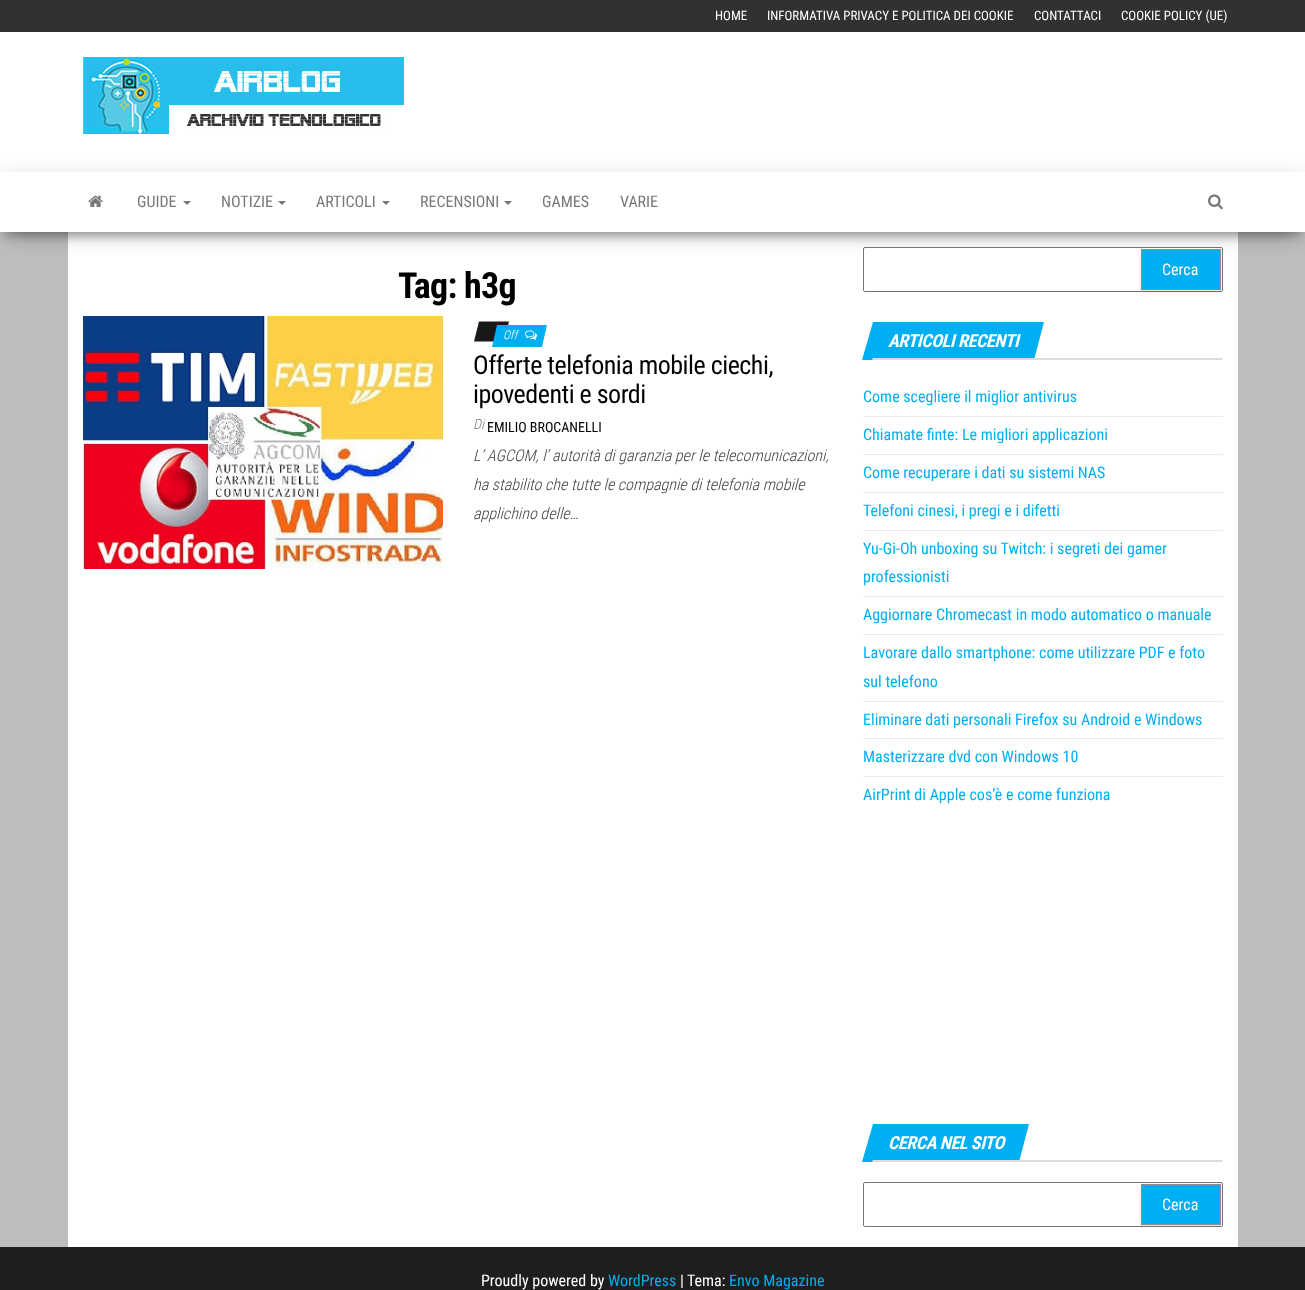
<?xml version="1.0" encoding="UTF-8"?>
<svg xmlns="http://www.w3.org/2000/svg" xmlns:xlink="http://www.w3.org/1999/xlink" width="1305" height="1290">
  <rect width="100%" height="100%" fill="#bbbdbf" />
  <rect width="1305" height="32" fill="#313131" />
  <rect y="32" width="1305" height="140" fill="#ffffff" />
  <image x="83" y="57" width="321" height="77" xlink:href="image1.png" />
  <rect x="68" y="232" width="1170" height="1015" fill="#ffffff" />
  <rect x="5" y="185" width="1295" height="50" fill="#000000" fill-opacity="0.2" filter="blur(5px)" />
  <rect y="175" width="1305" height="60" fill="#000000" fill-opacity="0.12" filter="blur(10px)" />
  <rect x="12" y="194" width="1281" height="36" fill="#000000" fill-opacity="0.42" filter="blur(10px)" />
  <rect y="172" width="1305" height="60" fill="#ffffff" />
  <image x="88" y="195" width="15" height="12" xlink:href="image2.png" />
  <path d="M 183 201 h 8 l -4 4 z" fill="#777777" />
  <path d="M 278 201 h 8 l -4 4 z" fill="#777777" />
  <path d="M 382 201 h 8 l -4 4 z" fill="#777777" />
  <path d="M 504 201 h 8 l -4 4 z" fill="#777777" />
  <image x="1208" y="194" width="15" height="16" xlink:href="image3.png" />
  <image x="83" y="316" width="360" height="253" xlink:href="image4.png" />
  <path d="M 479 321.5 h 30 l -5 20 h -30 z" fill="#191919" />
  <path d="M 497 325 h 50 l -5 22 h -50 z" fill="#00aff2" />
  <image x="525" y="330" width="12" height="10" xlink:href="image5.png" />
  <rect x="863.5" y="247.5" width="359" height="44" rx="1.5" fill="#ffffff" stroke="#767676" />
  <rect x="1141" y="250" width="80" height="41" fill="#000000" fill-opacity="0.15" filter="blur(1px)" />
  <rect x="1141.5" y="249.5" width="79" height="40" fill="#00aff2" stroke="#8e8e8e" />
  <path d="M 873 322 h 171 l -10 38 h -172 z" fill="#00aff2" />
  <path d="M 873 358 h 350 l -1 2 h -350 z" fill="#dddddd" />
  <rect x="863" y="416" width="360" height="1" fill="#ebebeb" />
  <rect x="863" y="454" width="360" height="1" fill="#ebebeb" />
  <rect x="863" y="492" width="360" height="1" fill="#ebebeb" />
  <rect x="863" y="530" width="360" height="1" fill="#ebebeb" />
  <rect x="863" y="596" width="360" height="1" fill="#ebebeb" />
  <rect x="863" y="634" width="360" height="1" fill="#ebebeb" />
  <rect x="863" y="701" width="360" height="1" fill="#ebebeb" />
  <rect x="863" y="738" width="360" height="1" fill="#ebebeb" />
  <rect x="863" y="776" width="360" height="1" fill="#ebebeb" />
  <path d="M 873 1124 h 156 l -10 38 h -157 z" fill="#00aff2" />
  <path d="M 873 1160 h 350 l -1 2 h -350 z" fill="#dddddd" />
  <rect x="863.5" y="1182.5" width="359" height="44" rx="1.5" fill="none" stroke="#767676" />
  <rect x="1141" y="1185" width="80" height="41" fill="#000000" fill-opacity="0.15" filter="blur(1px)" />
  <rect x="1141.5" y="1184.5" width="79" height="40" fill="#00aff2" stroke="#8e8e8e" />
  <rect y="1247" width="1305" height="43" fill="#1e1e1e" />
  <text x="715" y="20" style="font-family: Roboto Condensed; font-size: 13px; fill: #ffffff">HOME</text>
  <text x="767" y="20" style="font-family: Roboto Condensed; font-size: 13px; fill: #ffffff">INFORMATIVA PRIVACY E POLITICA DEI COOKIE</text>
  <text x="1034" y="20" style="font-family: Roboto Condensed; font-size: 13px; fill: #ffffff">CONTATTACI</text>
  <text x="1121" y="20" style="font-family: Roboto Condensed; font-size: 13px; fill: #ffffff">COOKIE POLICY (UE)</text>
  <text x="137" y="207" style="font-family: Roboto Condensed; font-size: 16px; fill: #777777">GUIDE</text>
  <text x="221" y="207" style="font-family: Roboto Condensed; font-size: 16px; fill: #777777">NOTIZIE</text>
  <text x="316" y="207" style="font-family: Roboto Condensed; font-size: 16px; fill: #777777">ARTICOLI</text>
  <text x="420" y="207" style="font-family: Roboto Condensed; font-size: 16px; fill: #777777">RECENSIONI</text>
  <text x="542" y="207" style="font-family: Roboto Condensed; font-size: 16px; fill: #777777">GAMES</text>
  <text x="620" y="207" style="font-family: Roboto Condensed; font-size: 16px; fill: #777777">VARIE</text>
  <text x="398" y="298" style="font-family: Roboto Condensed; font-size: 36px; font-weight: bold; letter-spacing: -0.75px; fill: #000000">Tag: h3g</text>
  <text x="503" y="339" style="font-family: Roboto Condensed; font-size: 12px; font-weight: 300; font-style: italic; fill: #ffffff">Off</text>
  <text x="473" y="374" style="font-family: Roboto Condensed; font-size: 26px; letter-spacing: -0.5px; fill: #000000">Offerte telefonia mobile ciechi,</text>
  <text x="473" y="403" style="font-family: Roboto Condensed; font-size: 26px; letter-spacing: -0.5px; fill: #000000">ipovedenti e sordi</text>
  <text x="473" y="429" style="font-family: Roboto Condensed; font-size: 14px; font-weight: 300; font-style: italic; fill: #777777">Di</text>
  <text x="487" y="432" style="font-family: Roboto Condensed; font-size: 14px; fill: #000000">EMILIO BROCANELLI</text>
  <text x="473" y="461" style="font-family: Roboto Condensed; font-size: 16px; font-weight: 300; font-style: italic; fill: #404040">L’ AGCOM, l’ autorità di garanzia per le telecomunicazioni,</text>
  <text x="473" y="490" style="font-family: Roboto Condensed; font-size: 16px; font-weight: 300; font-style: italic; fill: #404040">ha stabilito che tutte le compagnie di telefonia mobile</text>
  <text x="473" y="519" style="font-family: Roboto Condensed; font-size: 16px; font-weight: 300; font-style: italic; fill: #404040">applichino delle…</text>
  <text x="1162" y="275" style="font-family: Roboto Condensed; font-size: 16px; fill: #ffffff">Cerca</text>
  <text x="888" y="347" style="font-family: Roboto Condensed; font-size: 18px; font-weight: bold; font-style: italic; letter-spacing: -0.4px; fill: #ffffff">ARTICOLI RECENTI</text>
  <text x="863" y="402" style="font-family: Roboto Condensed; font-size: 16px; fill: #00aff2">Come scegliere il miglior antivirus</text>
  <text x="863" y="440" style="font-family: Roboto Condensed; font-size: 16px; fill: #00aff2">Chiamate finte: Le migliori applicazioni</text>
  <text x="863" y="478" style="font-family: Roboto Condensed; font-size: 16px; fill: #00aff2">Come recuperare i dati su sistemi NAS</text>
  <text x="863" y="516" style="font-family: Roboto Condensed; font-size: 16px; fill: #00aff2">Telefoni cinesi, i pregi e i difetti</text>
  <text x="863" y="554" style="font-family: Roboto Condensed; font-size: 16px; fill: #00aff2">Yu-Gi-Oh unboxing su Twitch: i segreti dei gamer</text>
  <text x="863" y="582" style="font-family: Roboto Condensed; font-size: 16px; fill: #00aff2">professionisti</text>
  <text x="863" y="620" style="font-family: Roboto Condensed; font-size: 16px; fill: #00aff2">Aggiornare Chromecast in modo automatico o manuale</text>
  <text x="863" y="658" style="font-family: Roboto Condensed; font-size: 16px; fill: #00aff2">Lavorare dallo smartphone: come utilizzare PDF e foto</text>
  <text x="863" y="687" style="font-family: Roboto Condensed; font-size: 16px; fill: #00aff2">sul telefono</text>
  <text x="863" y="725" style="font-family: Roboto Condensed; font-size: 16px; fill: #00aff2">Eliminare dati personali Firefox su Android e Windows</text>
  <text x="863" y="762" style="font-family: Roboto Condensed; font-size: 16px; fill: #00aff2">Masterizzare dvd con Windows 10</text>
  <text x="863" y="800" style="font-family: Roboto Condensed; font-size: 16px; fill: #00aff2">AirPrint di Apple cos’è e come funziona</text>
  <text x="888" y="1149" style="font-family: Roboto Condensed; font-size: 18px; font-weight: bold; font-style: italic; letter-spacing: -0.4px; fill: #ffffff">CERCA NEL SITO</text>
  <text x="1162" y="1210" style="font-family: Roboto Condensed; font-size: 16px; fill: #ffffff">Cerca</text>
  <text x="481" y="1286" style="font-family: Roboto Condensed; font-size: 16px; fill: #ffffff">Proudly powered by</text>
  <text x="608" y="1286" style="font-family: Roboto Condensed; font-size: 16px; fill: #00aff2">WordPress</text>
  <text x="680" y="1286" style="font-family: Roboto Condensed; font-size: 16px; fill: #ffffff">|</text>
  <text x="687" y="1286" style="font-family: Roboto Condensed; font-size: 16px; fill: #ffffff">Tema:</text>
  <text x="729" y="1286" style="font-family: Roboto Condensed; font-size: 16px; fill: #00aff2">Envo Magazine</text>
</svg>
